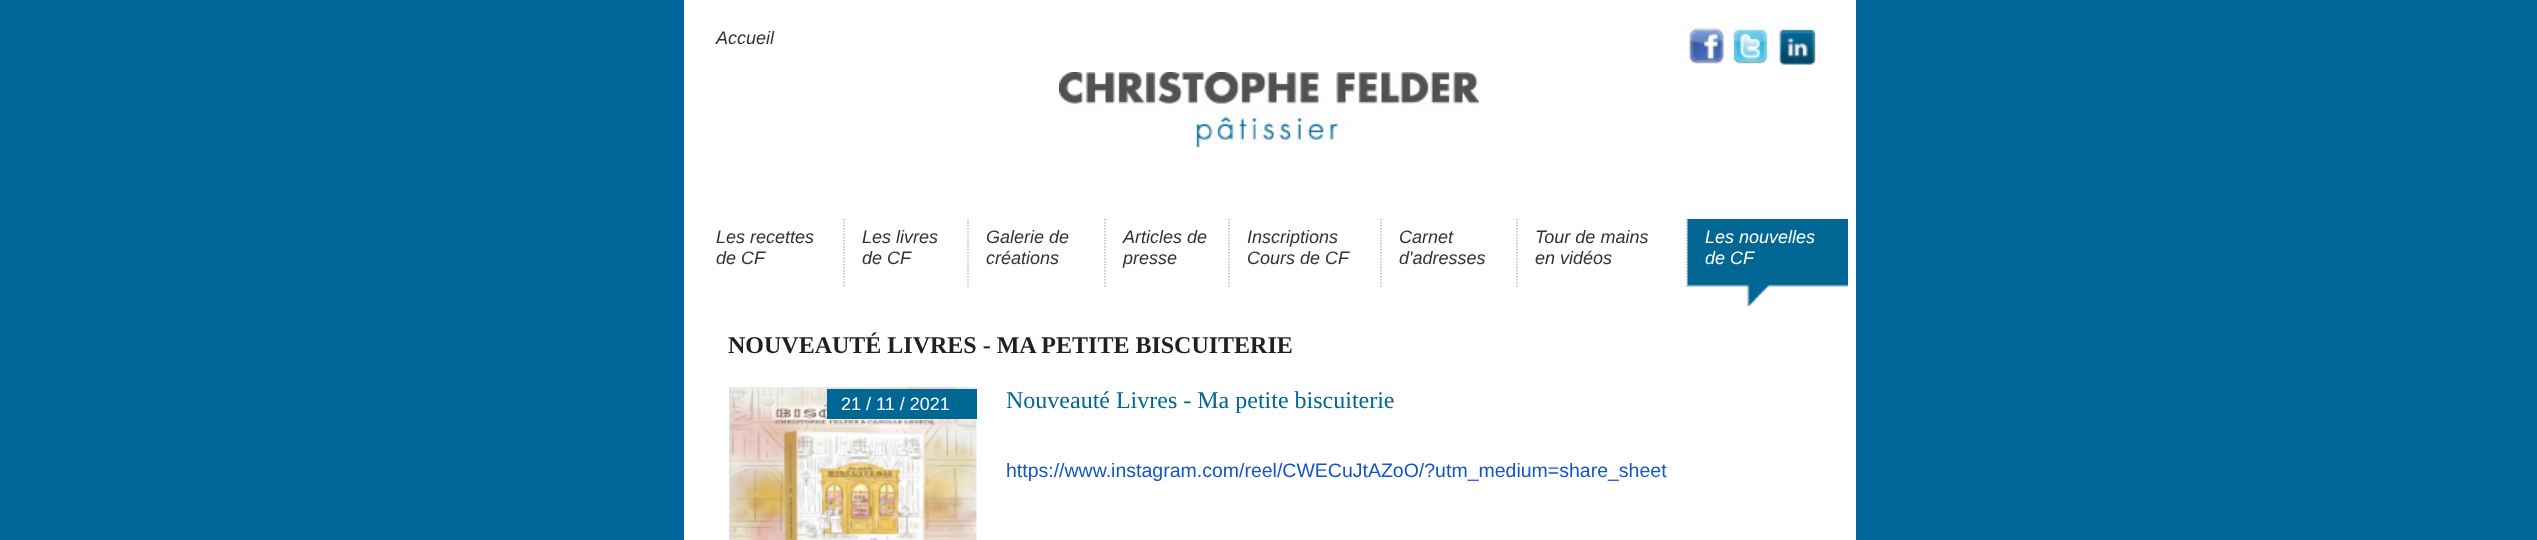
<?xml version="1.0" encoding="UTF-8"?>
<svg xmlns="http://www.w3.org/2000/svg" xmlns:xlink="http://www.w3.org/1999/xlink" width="2537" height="540">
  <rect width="100%" height="100%" fill="#006699" />
  <rect x="684" width="1172" height="540" fill="#ffffff" />
  <image x="1686" y="27" width="38" height="37" xlink:href="image1.png" />
  <image x="1731" y="27" width="37" height="37" xlink:href="image2.png" />
  <image x="1776" y="27" width="40" height="38" xlink:href="image3.png" />
  <image x="1059" y="72" width="420" height="75" xlink:href="image4.png" />
  <path d="M 844 219 v 67.5" fill="none" stroke="#babcbe" stroke-width="1.5" stroke-dasharray="1.5 1.5" />
  <path d="M 968 219 v 67.5" fill="none" stroke="#babcbe" stroke-width="1.5" stroke-dasharray="1.5 1.5" />
  <path d="M 1105 219 v 67.5" fill="none" stroke="#babcbe" stroke-width="1.5" stroke-dasharray="1.5 1.5" />
  <path d="M 1229 219 v 67.5" fill="none" stroke="#babcbe" stroke-width="1.5" stroke-dasharray="1.5 1.5" />
  <path d="M 1381 219 v 67.5" fill="none" stroke="#babcbe" stroke-width="1.5" stroke-dasharray="1.5 1.5" />
  <path d="M 1517 219 v 67.5" fill="none" stroke="#babcbe" stroke-width="1.5" stroke-dasharray="1.5 1.5" />
  <path d="M 1687 219 v 67.5" fill="none" stroke="#babcbe" stroke-width="1.5" stroke-dasharray="1.5 1.5" />
  <image x="1687" y="219" width="161" height="87" xlink:href="image5.png" />
  <image x="729" y="387" width="248" height="153" xlink:href="image6.png" />
  <rect x="827" y="389" width="150" height="30" fill="#006794" />
  <text x="716" y="44" style="font-family: Liberation Sans; font-size: 18px; font-style: italic; fill: #333333">Accueil</text>
  <text x="716" y="243" style="font-family: Liberation Sans; font-size: 18px; font-style: italic; fill: #333333">Les recettes</text>
  <text x="716" y="264" style="font-family: Liberation Sans; font-size: 18px; font-style: italic; fill: #333333">de CF</text>
  <text x="862" y="243" style="font-family: Liberation Sans; font-size: 18px; font-style: italic; fill: #333333">Les livres</text>
  <text x="862" y="264" style="font-family: Liberation Sans; font-size: 18px; font-style: italic; fill: #333333">de CF</text>
  <text x="986" y="243" style="font-family: Liberation Sans; font-size: 18px; font-style: italic; fill: #333333">Galerie de</text>
  <text x="986" y="264" style="font-family: Liberation Sans; font-size: 18px; font-style: italic; fill: #333333">créations</text>
  <text x="1123" y="243" style="font-family: Liberation Sans; font-size: 18px; font-style: italic; fill: #333333">Articles de</text>
  <text x="1123" y="264" style="font-family: Liberation Sans; font-size: 18px; font-style: italic; fill: #333333">presse</text>
  <text x="1247" y="243" style="font-family: Liberation Sans; font-size: 18px; font-style: italic; fill: #333333">Inscriptions</text>
  <text x="1247" y="264" style="font-family: Liberation Sans; font-size: 18px; font-style: italic; fill: #333333">Cours de CF</text>
  <text x="1399" y="243" style="font-family: Liberation Sans; font-size: 18px; font-style: italic; fill: #333333">Carnet</text>
  <text x="1399" y="264" style="font-family: Liberation Sans; font-size: 18px; font-style: italic; fill: #333333">d'adresses</text>
  <text x="1535" y="243" style="font-family: Liberation Sans; font-size: 18px; font-style: italic; fill: #333333">Tour de mains</text>
  <text x="1535" y="264" style="font-family: Liberation Sans; font-size: 18px; font-style: italic; fill: #333333">en vidéos</text>
  <text x="1705" y="243" style="font-family: Liberation Sans; font-size: 18px; font-style: italic; fill: #ffffff">Les nouvelles</text>
  <text x="1705" y="264" style="font-family: Liberation Sans; font-size: 18px; font-style: italic; fill: #ffffff">de CF</text>
  <text x="728" y="353" style="font-family: Liberation Serif; font-size: 24px; font-weight: bold; fill: #231f20">NOUVEAUTÉ LIVRES - MA PETITE BISCUITERIE</text>
  <text x="1006" y="408" style="font-family: Liberation Serif; font-size: 24px; fill: #006795">Nouveauté Livres - Ma petite biscuiterie</text>
  <text x="1006" y="477" style="font-family: Liberation Sans; font-size: 19.5px; fill: #1155cc">https://www.instagram.com/reel/CWECuJtAZoO/?utm_medium=share_sheet</text>
  <text x="841" y="410" style="font-family: Liberation Sans; font-size: 18px; fill: #ffffff">21 / 11 / 2021</text>
</svg>
